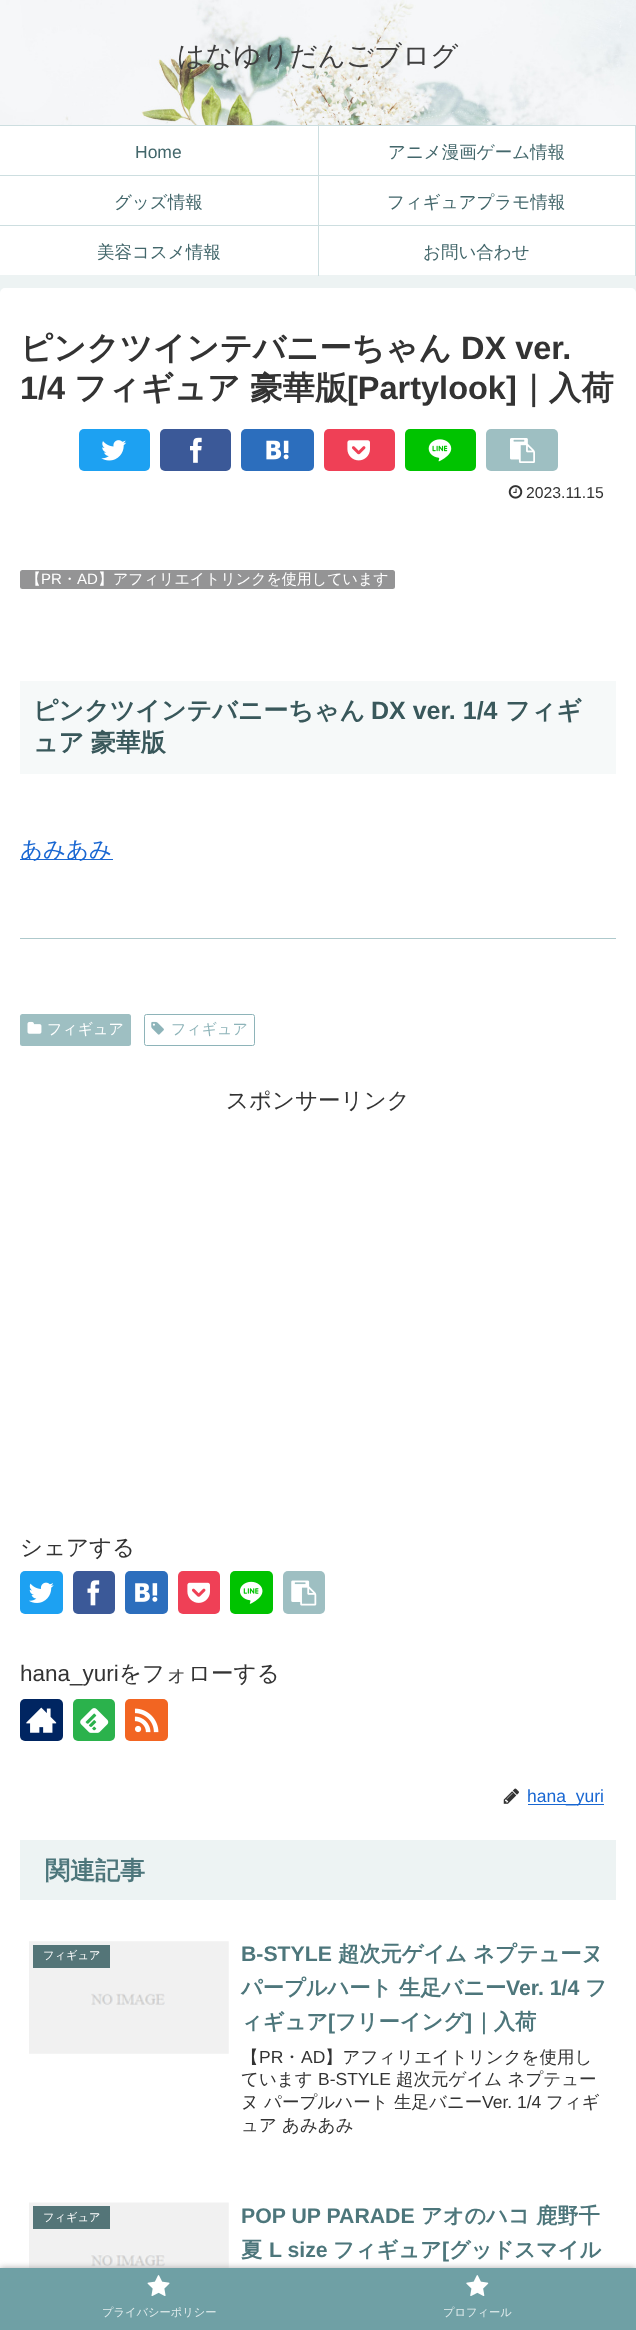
<?xml version="1.0" encoding="UTF-8"?>
<svg xmlns="http://www.w3.org/2000/svg" xmlns:xlink="http://www.w3.org/1999/xlink" width="636" height="2330">
  <rect width="100%" height="100%" fill="#edf3f3" />
  <rect y="126" width="635" height="149" fill="#ffffff" />
  <image x="0" y="0" width="636" height="125" xlink:href="image1.png" />
  <rect y="125" width="636" height="1" fill="#cddee0" />
  <rect x="318" y="125" width="1" height="51" fill="#cddee0" />
  <rect x="635" y="125" width="1" height="51" fill="#cddee0" />
  <rect y="175" width="636" height="1" fill="#cddee0" />
  <rect x="318" y="175" width="1" height="51" fill="#cddee0" />
  <rect x="635" y="175" width="1" height="51" fill="#cddee0" />
  <rect y="225" width="636" height="1" fill="#cddee0" />
  <rect x="318" y="225" width="1" height="51" fill="#cddee0" />
  <rect x="635" y="225" width="1" height="51" fill="#cddee0" />
  <rect y="288" width="636" height="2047" rx="5" fill="#ffffff" />
  <rect x="79" y="429" width="71" height="42" rx="5" fill="#1da1f2" />
  <image x="101" y="440" width="26" height="21" xlink:href="image2.png" />
  <rect x="160" y="429" width="71" height="42" rx="5" fill="#3b5998" />
  <image x="190" y="437" width="12" height="26" xlink:href="image3.png" />
  <rect x="241" y="429" width="73" height="42" rx="5" fill="#2c6ebd" />
  <image x="266" y="440" width="23" height="20" xlink:href="image4.png" />
  <rect x="324" y="429" width="71" height="42" rx="5" fill="#ef4056" />
  <image x="347" y="440" width="23" height="21" xlink:href="image5.png" />
  <rect x="405" y="429" width="71" height="42" rx="5" fill="#00c300" />
  <image x="428" y="439" width="24" height="23" xlink:href="image6.png" />
  <rect x="486" y="429" width="72" height="42" rx="5" fill="#9ebfc2" />
  <image x="510" y="438" width="25" height="25" xlink:href="image7.png" />
  <image x="508" y="485" width="15" height="14" xlink:href="image8.png" />
  <rect x="20" y="570" width="375" height="19" rx="2.5" fill="#949495" />
  <rect x="20" y="681" width="596" height="93" fill="#f6f9f9" />
  <rect x="20" y="859" width="93" height="1" fill="#1967d2" />
  <rect x="20" y="938" width="596" height="1" fill="#aec9cc" />
  <rect x="20" y="1014" width="111" height="32" rx="2.5" fill="#9ebfc2" />
  <image x="27" y="1021" width="15" height="13" xlink:href="image9.png" />
  <rect x="144.5" y="1014.5" width="110" height="31" rx="2" fill="none" stroke="#8eb4b9" />
  <image x="151" y="1021" width="13" height="14" xlink:href="image10.png" />
  <rect x="20" y="1571" width="43" height="43" rx="5" fill="#1da1f2" />
  <image x="29" y="1582" width="25" height="21" xlink:href="image11.png" />
  <rect x="73" y="1571" width="42" height="43" rx="5" fill="#3b5998" />
  <image x="87" y="1580" width="13" height="26" xlink:href="image12.png" />
  <rect x="125" y="1571" width="43" height="43" rx="5" fill="#2c6ebd" />
  <image x="135" y="1583" width="23" height="19" xlink:href="image13.png" />
  <rect x="178" y="1571" width="42" height="43" rx="5" fill="#ef4056" />
  <image x="187" y="1582" width="23" height="21" xlink:href="image14.png" />
  <rect x="230" y="1571" width="43" height="43" rx="5" fill="#00c300" />
  <image x="240" y="1581" width="23" height="23" xlink:href="image15.png" />
  <rect x="283" y="1571" width="42" height="43" rx="5" fill="#9ebfc2" />
  <image x="291" y="1580" width="26" height="26" xlink:href="image16.png" />
  <rect x="20" y="1699" width="43" height="42" rx="5" fill="#002561" />
  <image x="26" y="1707" width="31" height="26" xlink:href="image17.png" />
  <rect x="73" y="1699" width="42" height="42" rx="5" fill="#2bb24c" />
  <image x="80" y="1708" width="29" height="25" xlink:href="image18.png" />
  <rect x="125" y="1699" width="43" height="42" rx="5" fill="#f26522" />
  <image x="134" y="1708" width="25" height="25" xlink:href="image19.png" />
  <image x="503" y="1788" width="16" height="16" xlink:href="image20.png" />
  <rect x="528" y="1804" width="76" height="1" fill="#1967d2" />
  <rect x="20" y="1840" width="596" height="60" fill="#edf3f3" />
  <image x="29" y="1941" width="200" height="113" xlink:href="image21.png" />
  <rect x="33" y="1945" width="77" height="23" fill="#547578" />
  <image x="29" y="2202" width="200" height="66" xlink:href="image22.png" />
  <rect x="33" y="2206" width="77" height="23" fill="#547578" />
  <rect y="2268" width="636" height="62" fill="#a9a9a9" filter="blur(3px)" />
  <rect y="2268" width="636" height="62" fill="#6fa0a5" />
  <image x="147" y="2275" width="23" height="21" xlink:href="image23.png" />
  <image x="466" y="2275" width="23" height="21" xlink:href="image24.png" />
  <text x="177" y="65" style="font-family: WenQuanYi Zen Hei; font-size: 27.5px; font-weight: 500; fill: #3f3f3f">はなゆりだんごブログ</text>
  <text x="135" y="158" style="font-family: Liberation Sans; font-size: 17.5px; fill: #43676b">Home</text>
  <text x="388" y="158" style="font-family: WenQuanYi Zen Hei; font-size: 17.5px; font-weight: 500; fill: #43676b">アニメ漫画ゲーム情報</text>
  <text x="114" y="208" style="font-family: WenQuanYi Zen Hei; font-size: 17.5px; font-weight: 500; fill: #43676b">グッズ情報</text>
  <text x="387" y="208" style="font-family: WenQuanYi Zen Hei; font-size: 17.5px; font-weight: 500; fill: #43676b">フィギュアプラモ情報</text>
  <text x="97" y="258" style="font-family: WenQuanYi Zen Hei; font-size: 17.5px; font-weight: 500; fill: #43676b">美容コスメ情報</text>
  <text x="423" y="258" style="font-family: WenQuanYi Zen Hei; font-size: 17.5px; font-weight: 500; fill: #43676b">お問い合わせ</text>
  <text x="20" y="359" style="font-family: WenQuanYi Zen Hei; font-size: 32.5px; font-weight: bold; fill: #333333">ピンクツインテバニーちゃん</text>
  <text x="461" y="359" style="font-family: Liberation Sans; font-size: 32.5px; font-weight: bold; fill: #333333">DX ver.</text>
  <text x="20" y="399" style="font-family: Liberation Sans; font-size: 32.5px; font-weight: bold; fill: #333333">1/4</text>
  <text x="74" y="399" style="font-family: WenQuanYi Zen Hei; font-size: 32.5px; font-weight: bold; fill: #333333">フィギュア 豪華版</text>
  <text x="347" y="399" style="font-family: Liberation Sans; font-size: 32.5px; font-weight: bold; fill: #333333">[Partylook]</text>
  <text x="517" y="399" style="font-family: WenQuanYi Zen Hei; font-size: 32.5px; font-weight: bold; fill: #333333">｜入荷</text>
  <text x="526" y="498" style="font-family: Liberation Sans; font-size: 15.75px; fill: #333333">2023.11.15</text>
  <text x="26" y="584" style="font-family: WenQuanYi Zen Hei; font-size: 15px; font-weight: 500; fill: #ffffff">【</text>
  <text x="41" y="584" style="font-family: Liberation Sans; font-size: 15px; fill: #ffffff">PR</text>
  <text x="62" y="584" style="font-family: WenQuanYi Zen Hei; font-size: 15px; font-weight: 500; fill: #ffffff">・</text>
  <text x="77" y="584" style="font-family: Liberation Sans; font-size: 15px; fill: #ffffff">AD</text>
  <text x="98" y="584" style="font-family: WenQuanYi Zen Hei; font-size: 15px; font-weight: 500; fill: #ffffff">】アフィリエイトリンクを使用しています</text>
  <text x="33" y="719" style="font-family: WenQuanYi Zen Hei; font-size: 25px; font-weight: bold; fill: #39585b">ピンクツインテバニーちゃん</text>
  <text x="371" y="719" style="font-family: Liberation Sans; font-size: 25px; font-weight: bold; fill: #39585b">DX ver. 1/4</text>
  <text x="505" y="719" style="font-family: WenQuanYi Zen Hei; font-size: 25px; font-weight: bold; fill: #39585b">フィギ</text>
  <text x="33" y="751" word-spacing="-1" style="font-family: WenQuanYi Zen Hei; font-size: 25px; font-weight: bold; fill: #39585b">ュア 豪華版</text>
  <text x="20" y="857" style="font-family: WenQuanYi Zen Hei; font-size: 22.5px; font-weight: 500; fill: #1967d2">あみあみ</text>
  <text x="47" y="1034" style="font-family: WenQuanYi Zen Hei; font-size: 15px; font-weight: 500; fill: #ffffff">フィギュア</text>
  <text x="171" y="1034" style="font-family: WenQuanYi Zen Hei; font-size: 15px; font-weight: 500; fill: #8eb4b9">フィギュア</text>
  <text x="226" y="1108" style="font-family: WenQuanYi Zen Hei; font-size: 22.5px; font-weight: 500; fill: #333333">スポンサーリンク</text>
  <text x="20" y="1555" style="font-family: WenQuanYi Zen Hei; font-size: 22.5px; font-weight: 500; fill: #333333">シェアする</text>
  <text x="20" y="1681" style="font-family: Liberation Sans; font-size: 22.5px; fill: #333333">hana_yuri</text>
  <text x="119" y="1681" style="font-family: WenQuanYi Zen Hei; font-size: 22.5px; font-weight: 500; fill: #333333">をフォローする</text>
  <text x="527" y="1802" style="font-family: Liberation Sans; font-size: 17.5px; fill: #1967d2">hana_yuri</text>
  <text x="45" y="1879" style="font-family: WenQuanYi Zen Hei; font-size: 25px; font-weight: bold; fill: #4d767b">関連記事</text>
  <text x="43" y="1959" style="font-family: WenQuanYi Zen Hei; font-size: 11.25px; font-weight: 500; fill: #ffffff">フィギュア</text>
  <text x="241" y="1961" style="font-family: Liberation Sans; font-size: 21.25px; font-weight: bold; fill: #4d767b">B-STYLE</text>
  <text x="338" y="1961" style="font-family: WenQuanYi Zen Hei; font-size: 21.25px; font-weight: bold; fill: #4d767b">超次元ゲイム ネプテューヌ</text>
  <text x="241" y="1995" style="font-family: WenQuanYi Zen Hei; font-size: 21.25px; font-weight: bold; fill: #4d767b">パープルハート</text>
  <text x="399" y="1995" style="font-family: WenQuanYi Zen Hei; font-size: 21.25px; font-weight: bold; fill: #4d767b">生足バニー</text>
  <text x="506" y="1995" style="font-family: Liberation Sans; font-size: 21.25px; font-weight: bold; fill: #4d767b">Ver. 1/4</text>
  <text x="585" y="1995" style="font-family: WenQuanYi Zen Hei; font-size: 21.25px; font-weight: bold; fill: #4d767b">フ</text>
  <text x="241" y="2029" style="font-family: WenQuanYi Zen Hei; font-size: 21.25px; font-weight: bold; fill: #4d767b">ィギュア</text>
  <text x="328" y="2029" style="font-family: Liberation Sans; font-size: 21.25px; font-weight: bold; fill: #4d767b">[</text>
  <text x="335" y="2029" style="font-family: WenQuanYi Zen Hei; font-size: 21.25px; font-weight: bold; fill: #4d767b">フリーイング</text>
  <text x="465" y="2029" style="font-family: Liberation Sans; font-size: 21.25px; font-weight: bold; fill: #4d767b">]</text>
  <text x="473" y="2029" style="font-family: WenQuanYi Zen Hei; font-size: 21.25px; font-weight: bold; fill: #4d767b">｜入荷</text>
  <text x="241" y="2063" style="font-family: WenQuanYi Zen Hei; font-size: 17.5px; font-weight: 500; fill: #333333">【</text>
  <text x="259" y="2063" style="font-family: Liberation Sans; font-size: 17.5px; fill: #333333">PR</text>
  <text x="283" y="2063" style="font-family: WenQuanYi Zen Hei; font-size: 17.5px; font-weight: 500; fill: #333333">・</text>
  <text x="301" y="2063" style="font-family: Liberation Sans; font-size: 17.5px; fill: #333333">AD</text>
  <text x="325" y="2063" style="font-family: WenQuanYi Zen Hei; font-size: 17.5px; font-weight: 500; fill: #333333">】アフィリエイトリンクを使用し</text>
  <text x="241" y="2085" style="font-family: WenQuanYi Zen Hei; font-size: 17.5px; font-weight: 500; fill: #333333">ています</text>
  <text x="318" y="2085" style="font-family: Liberation Sans; font-size: 17.5px; fill: #333333">B-STYLE</text>
  <text x="396" y="2085" style="font-family: WenQuanYi Zen Hei; font-size: 17.5px; font-weight: 500; fill: #333333">超次元ゲイム ネプテュー</text>
  <text x="241" y="2108" style="font-family: WenQuanYi Zen Hei; font-size: 17.5px; font-weight: 500; fill: #333333">ヌ</text>
  <text x="264" y="2108" style="font-family: WenQuanYi Zen Hei; font-size: 17.5px; font-weight: 500; fill: #333333">パープルハート</text>
  <text x="394" y="2108" style="font-family: WenQuanYi Zen Hei; font-size: 17.5px; font-weight: 500; fill: #333333">生足バニー</text>
  <text x="482" y="2108" style="font-family: Liberation Sans; font-size: 17.5px; fill: #333333">Ver. 1/4</text>
  <text x="546" y="2108" style="font-family: WenQuanYi Zen Hei; font-size: 17.5px; font-weight: 500; fill: #333333">フィギ</text>
  <text x="241" y="2131" style="font-family: WenQuanYi Zen Hei; font-size: 17.5px; font-weight: 500; fill: #333333">ュア</text>
  <text x="282" y="2131" style="font-family: WenQuanYi Zen Hei; font-size: 17.5px; font-weight: 500; fill: #333333">あみあみ</text>
  <text x="43" y="2221" style="font-family: WenQuanYi Zen Hei; font-size: 11.25px; font-weight: 500; fill: #ffffff">フィギュア</text>
  <text x="241" y="2223" style="font-family: Liberation Sans; font-size: 21.25px; font-weight: bold; fill: #4d767b">POP UP PARADE</text>
  <text x="421" y="2223" style="font-family: WenQuanYi Zen Hei; font-size: 21.25px; font-weight: bold; fill: #4d767b">アオのハコ</text>
  <text x="536" y="2223" style="font-family: WenQuanYi Zen Hei; font-size: 21.25px; font-weight: bold; fill: #4d767b">鹿野千</text>
  <text x="241" y="2257" style="font-family: WenQuanYi Zen Hei; font-size: 21.25px; font-weight: bold; fill: #4d767b">夏</text>
  <text x="269" y="2257" style="font-family: Liberation Sans; font-size: 21.25px; font-weight: bold; fill: #4d767b">L size</text>
  <text x="333" y="2257" style="font-family: WenQuanYi Zen Hei; font-size: 21.25px; font-weight: bold; fill: #4d767b">フィギュア</text>
  <text x="442" y="2257" style="font-family: Liberation Sans; font-size: 21.25px; font-weight: bold; fill: #4d767b">[</text>
  <text x="449" y="2257" style="font-family: WenQuanYi Zen Hei; font-size: 21.25px; font-weight: bold; fill: #4d767b">グッドスマイル</text>
  <text x="102" y="2316" style="font-family: WenQuanYi Zen Hei; font-size: 11.25px; font-weight: 500; fill: #e2eced">プライバシーポリシー</text>
  <text x="443" y="2316" style="font-family: WenQuanYi Zen Hei; font-size: 11.25px; font-weight: 500; fill: #e2eced">プロフィール</text>
</svg>
